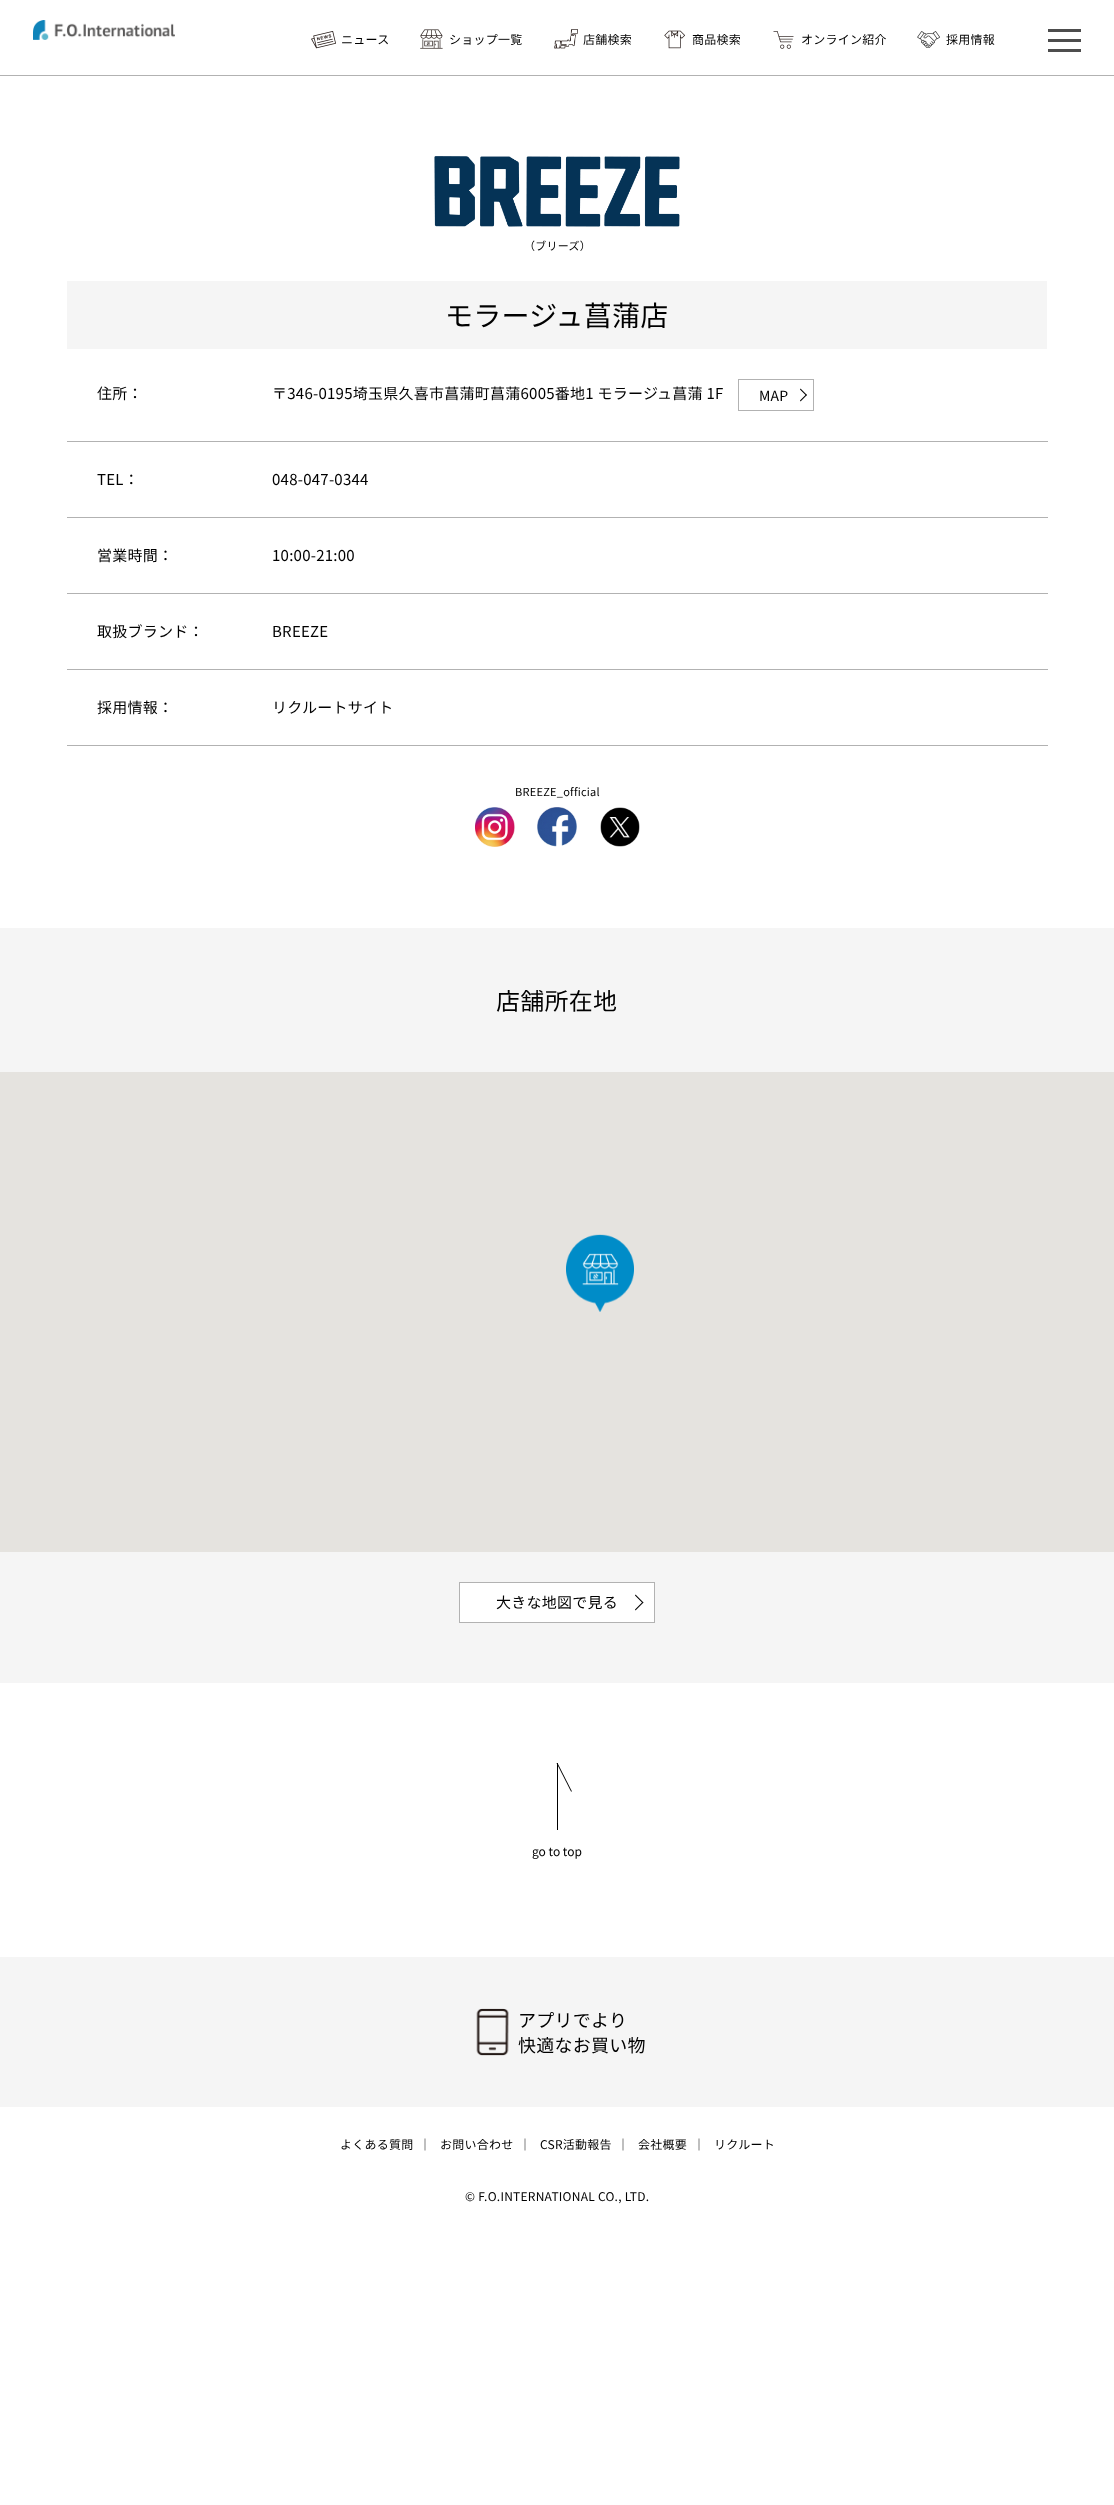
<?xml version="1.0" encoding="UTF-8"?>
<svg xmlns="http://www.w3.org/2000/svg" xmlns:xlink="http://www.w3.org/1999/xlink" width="1114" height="2505">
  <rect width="100%" height="100%" fill="#ffffff" />
  <rect y="75" width="1114" height="1" fill="#b2b2b2" />
  <image x="33" y="20" width="142" height="20" xlink:href="image1.png" />
  <image x="311" y="31" width="25" height="18" xlink:href="image2.png" />
  <image x="420" y="29" width="23" height="20" xlink:href="image3.png" />
  <image x="554" y="29" width="24" height="20" xlink:href="image4.png" />
  <image x="664" y="30" width="21" height="19" xlink:href="image5.png" />
  <image x="773" y="31" width="21" height="18" xlink:href="image6.png" />
  <image x="917" y="31" width="23" height="17" xlink:href="image7.png" />
  <rect x="1048" y="29" width="33" height="3" fill="#4d4d4d" />
  <rect x="1048" y="39" width="33" height="3" fill="#4d4d4d" />
  <rect x="1048" y="49" width="33" height="3" fill="#4d4d4d" />
  <image x="434" y="156" width="246" height="71" xlink:href="image8.png" />
  <rect x="67" y="281" width="980" height="68" fill="#f5f5f5" />
  <rect x="67" y="441" width="981" height="1" fill="#b2b2b2" />
  <rect x="738.5" y="379.5" width="75" height="31" fill="none" stroke="#b2b2b2" />
  <path d="M 800.5 388.5 l 6.5 6.5 l -1 0.5 l -6 -6 z" fill="#000000" />
  <path d="M 806 394.5 l 1 0.5 l -6.5 6.5 l -0.5 -1 z" fill="#000000" />
  <rect x="67" y="517" width="981" height="1" fill="#b2b2b2" />
  <rect x="67" y="593" width="981" height="1" fill="#b2b2b2" />
  <rect x="67" y="669" width="981" height="1" fill="#b2b2b2" />
  <rect x="67" y="745" width="981" height="1" fill="#b2b2b2" />
  <image x="475" y="807" width="40" height="40" xlink:href="image9.png" />
  <image x="537" y="807" width="40" height="40" xlink:href="image10.png" />
  <image x="600" y="807" width="40" height="40" xlink:href="image11.png" />
  <rect y="928" width="1114" height="755" fill="#f5f5f5" />
  <rect y="1072" width="1114" height="480" fill="#e5e3df" />
  <image x="566" y="1234" width="68" height="78" xlink:href="image12.png" />
  <rect x="459.5" y="1582.5" width="195" height="40" fill="#ffffff" stroke="#b2b2b2" />
  <path d="M 635.5 1594.5 l 8 8 l -1 0.5 l -7.5 -7.5 z" fill="#000000" />
  <path d="M 642.5 1602 l 1 0.5 l -8 8 l -0.5 -1 z" fill="#000000" />
  <rect x="557" y="1763" width="1" height="67" fill="#000000" />
  <path d="M 556.5 1763 h 1 l 14.5 28.5 h -1 z" fill="#000000" />
  <rect y="1957" width="1114" height="150" fill="#f5f5f5" />
  <image x="476" y="2008" width="33" height="48" xlink:href="image13.png" />
  <text x="341" y="44" style="font-family: Noto Sans JP; font-size: 12px; letter-spacing: 0.25px; fill: #000000">ニュース</text>
  <text x="449" y="44" style="font-family: Noto Sans JP; font-size: 12px; letter-spacing: 0.25px; fill: #000000">ショップ一覧</text>
  <text x="583" y="44" style="font-family: Noto Sans JP; font-size: 12px; letter-spacing: 0.25px; fill: #000000">店舗検索</text>
  <text x="692" y="44" style="font-family: Noto Sans JP; font-size: 12px; letter-spacing: 0.25px; fill: #000000">商品検索</text>
  <text x="801" y="44" style="font-family: Noto Sans JP; font-size: 12px; letter-spacing: 0.25px; fill: #000000">オンライン紹介</text>
  <text x="946" y="44" style="font-family: Noto Sans JP; font-size: 12px; letter-spacing: 0.25px; fill: #000000">採用情報</text>
  <text x="524" y="250" style="font-family: Noto Sans JP; font-size: 11px; letter-spacing: 0.25px; fill: #000000">（ブリーズ）</text>
  <text x="445" y="326" style="font-family: Noto Sans JP; font-size: 28px; letter-spacing: 0.25px; fill: #000000">モラージュ菖蒲店</text>
  <text x="97" y="399" style="font-family: Noto Sans JP; font-size: 15px; letter-spacing: 0.25px; fill: #000000">住所：</text>
  <text x="272" y="399" style="font-family: Noto Sans JP; font-size: 15px; letter-spacing: 0.25px; fill: #000000">〒346-0195埼玉県久喜市菖蒲町菖蒲6005番地1 モラージュ菖蒲 1F</text>
  <text x="759" y="401" style="font-family: Noto Sans JP; font-size: 14px; letter-spacing: 0.25px; fill: #000000">MAP</text>
  <text x="97" y="485" style="font-family: Noto Sans JP; font-size: 15px; letter-spacing: 0.25px; fill: #000000">TEL：</text>
  <text x="272" y="485" style="font-family: Noto Sans JP; font-size: 15px; letter-spacing: 0.25px; fill: #000000">048-047-0344</text>
  <text x="97" y="561" style="font-family: Noto Sans JP; font-size: 15px; letter-spacing: 0.25px; fill: #000000">営業時間：</text>
  <text x="272" y="561" style="font-family: Noto Sans JP; font-size: 15px; letter-spacing: 0.25px; fill: #000000">10:00-21:00</text>
  <text x="97" y="637" style="font-family: Noto Sans JP; font-size: 15px; letter-spacing: 0.25px; fill: #000000">取扱ブランド：</text>
  <text x="272" y="637" style="font-family: Noto Sans JP; font-size: 15px; letter-spacing: 0.25px; fill: #000000">BREEZE</text>
  <text x="97" y="713" style="font-family: Noto Sans JP; font-size: 15px; letter-spacing: 0.25px; fill: #000000">採用情報：</text>
  <text x="272" y="713" style="font-family: Noto Sans JP; font-size: 15px; letter-spacing: 0.25px; fill: #000000">リクルートサイト</text>
  <text x="515" y="796" style="font-family: Noto Sans JP; font-size: 11px; letter-spacing: 0.25px; fill: #000000">BREEZE_official</text>
  <text x="496" y="1010" style="font-family: Noto Sans JP; font-size: 24px; letter-spacing: 0.25px; fill: #000000">店舗所在地</text>
  <text x="496" y="1608" style="font-family: Noto Sans JP; font-size: 15px; letter-spacing: 0.25px; fill: #000000">大きな地図で見る</text>
  <text x="532" y="1856" style="font-family: Noto Sans JP; font-size: 12px; fill: #000000">go to top</text>
  <text x="518" y="2027" style="font-family: Noto Sans JP; font-size: 18px; letter-spacing: 0.25px; fill: #000000">アプリでより</text>
  <text x="518" y="2052" style="font-family: Noto Sans JP; font-size: 18px; letter-spacing: 0.25px; fill: #000000">快適なお買い物</text>
  <text x="340" y="2149" style="font-family: Noto Sans JP; font-size: 12px; letter-spacing: 0.25px; fill: #000000">よくある質問</text>
  <text x="419" y="2149" style="font-family: Noto Sans JP; font-size: 12px; letter-spacing: 0.25px; fill: #000000">｜</text>
  <text x="440" y="2149" style="font-family: Noto Sans JP; font-size: 12px; letter-spacing: 0.25px; fill: #000000">お問い合わせ</text>
  <text x="519" y="2149" style="font-family: Noto Sans JP; font-size: 12px; letter-spacing: 0.25px; fill: #000000">｜</text>
  <text x="540" y="2149" style="font-family: Noto Sans JP; font-size: 12px; letter-spacing: 0.25px; fill: #000000">CSR活動報告</text>
  <text x="617" y="2149" style="font-family: Noto Sans JP; font-size: 12px; letter-spacing: 0.25px; fill: #000000">｜</text>
  <text x="638" y="2149" style="font-family: Noto Sans JP; font-size: 12px; letter-spacing: 0.25px; fill: #000000">会社概要</text>
  <text x="693" y="2149" style="font-family: Noto Sans JP; font-size: 12px; letter-spacing: 0.25px; fill: #000000">｜</text>
  <text x="714" y="2149" style="font-family: Noto Sans JP; font-size: 12px; letter-spacing: 0.25px; fill: #000000">リクルート</text>
  <text x="465" y="2201" style="font-family: Noto Sans JP; font-size: 12px; letter-spacing: 0.25px; fill: #000000">© F.O.INTERNATIONAL CO., LTD.</text>
</svg>
